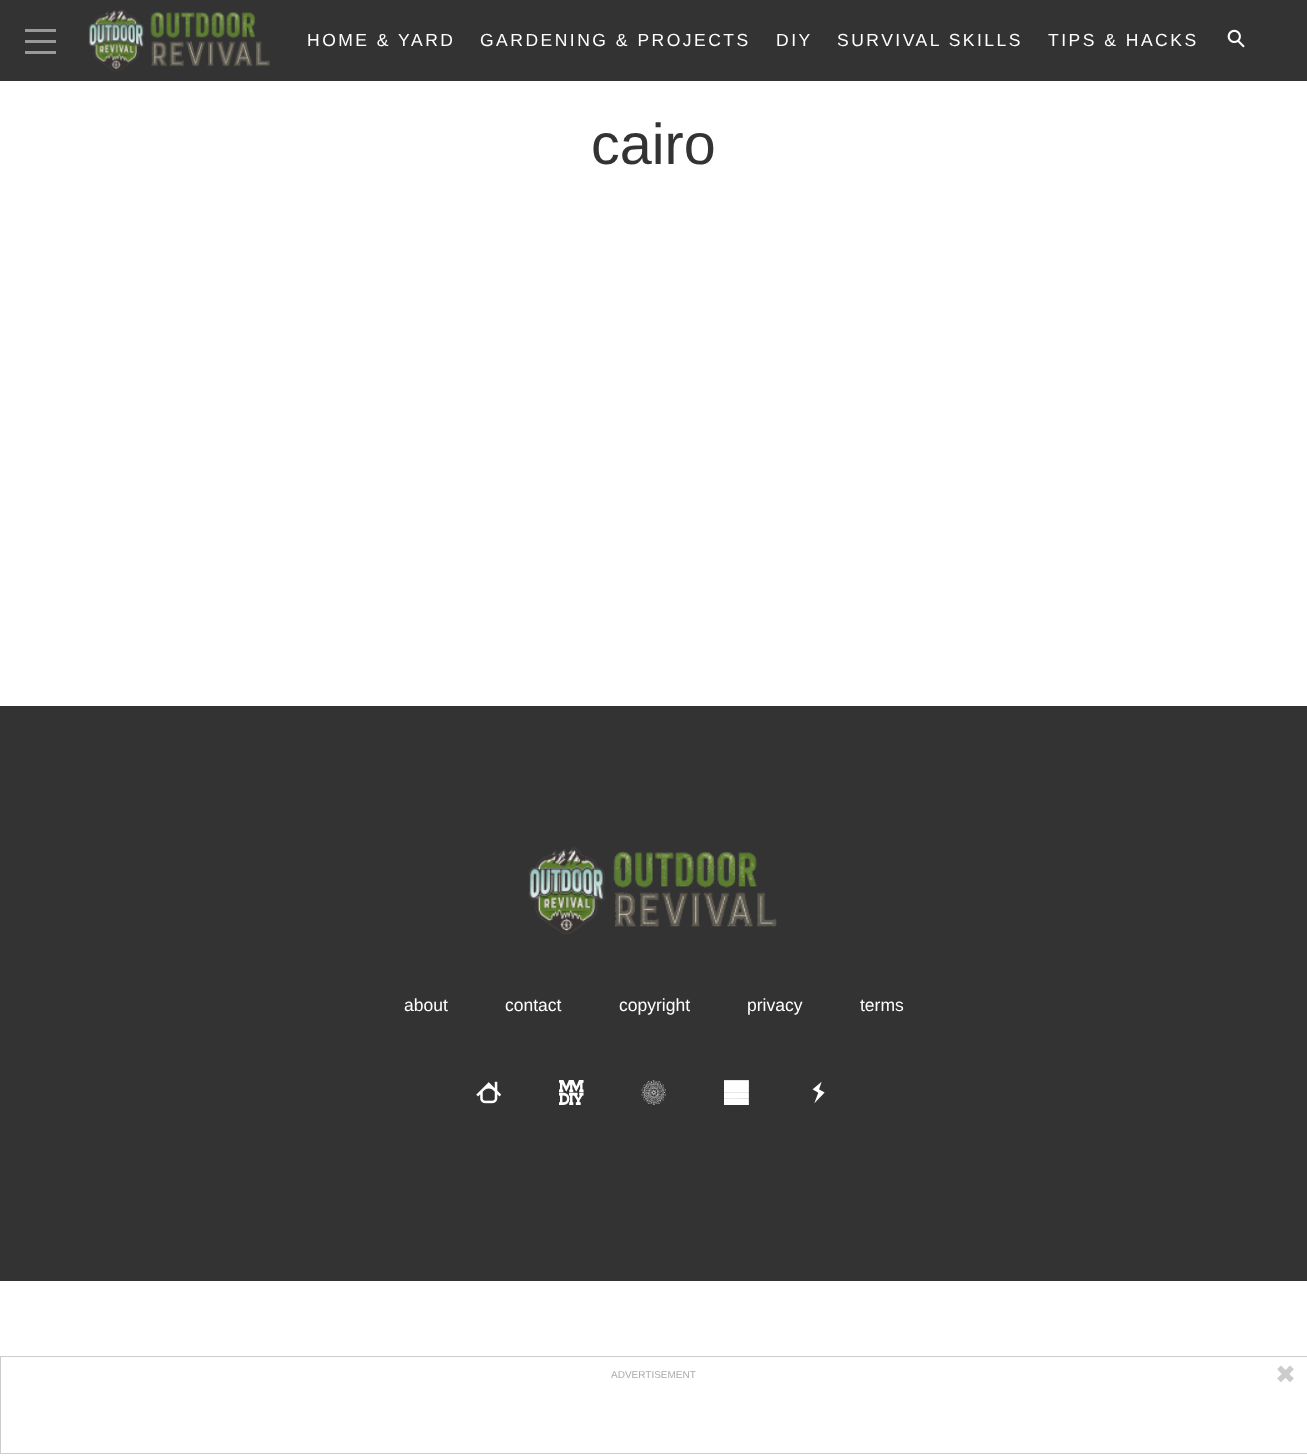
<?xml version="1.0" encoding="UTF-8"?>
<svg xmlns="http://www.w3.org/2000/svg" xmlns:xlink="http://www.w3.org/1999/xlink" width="1307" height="1456">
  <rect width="100%" height="100%" fill="#ffffff" />
  <rect width="1307" height="81" fill="#333333" />
  <rect x="25" y="29" width="31" height="3" fill="#999999" />
  <rect x="25" y="40" width="31" height="3" fill="#999999" />
  <rect x="25" y="51" width="31" height="3" fill="#999999" />
  <image x="88" y="9" width="182" height="63" xlink:href="image1.png" />
  <image x="1227" y="29" width="18" height="19" xlink:href="image2.png" />
  <rect y="706" width="1307" height="575" fill="#333333" />
  <image x="528" y="847" width="249" height="87" xlink:href="image3.png" />
  <image x="476" y="1081" width="25" height="23" xlink:href="image4.png" />
  <image x="559" y="1080" width="25" height="25" xlink:href="image5.png" />
  <image x="641" y="1080" width="25" height="25" xlink:href="image6.png" />
  <image x="724" y="1080" width="25" height="25" xlink:href="image7.png" />
  <image x="812" y="1081" width="13" height="23" xlink:href="image8.png" />
  <rect x="0.5" y="1356.5" width="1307" height="97" fill="none" stroke="#cccccc" />
  <text x="307" y="46" style="font-family: Liberation Sans; font-size: 17.5px; letter-spacing: 2.5px; fill: #ffffff">HOME &amp; YARD</text>
  <text x="480" y="46" style="font-family: Liberation Sans; font-size: 17.5px; letter-spacing: 2.5px; fill: #ffffff">GARDENING &amp; PROJECTS</text>
  <text x="776" y="46" style="font-family: Liberation Sans; font-size: 17.5px; letter-spacing: 2.5px; fill: #ffffff">DIY</text>
  <text x="837" y="46" style="font-family: Liberation Sans; font-size: 17.5px; letter-spacing: 2.5px; fill: #ffffff">SURVIVAL SKILLS</text>
  <text x="1048" y="46" style="font-family: Liberation Sans; font-size: 17.5px; letter-spacing: 2.5px; fill: #ffffff">TIPS &amp; HACKS</text>
  <text x="591" y="164" style="font-family: Liberation Sans; font-size: 57.5px; fill: #333333">cairo</text>
  <text x="404" y="1011" style="font-family: Liberation Sans; font-size: 17.5px; fill: #ffffff">about</text>
  <text x="505" y="1011" style="font-family: Liberation Sans; font-size: 17.5px; fill: #ffffff">contact</text>
  <text x="619" y="1011" style="font-family: Liberation Sans; font-size: 17.5px; fill: #ffffff">copyright</text>
  <text x="747" y="1011" style="font-family: Liberation Sans; font-size: 17.5px; fill: #ffffff">privacy</text>
  <text x="860" y="1011" style="font-family: Liberation Sans; font-size: 17.5px; fill: #ffffff">terms</text>
  <text x="611" y="1378" style="font-family: Liberation Sans; font-size: 10px; fill: #aaaaaa">ADVERTISEMENT</text>
  <text x="1275" y="1383" style="font-family: DejaVu Sans; font-size: 25px; fill: #cccccc">✖</text>
</svg>
